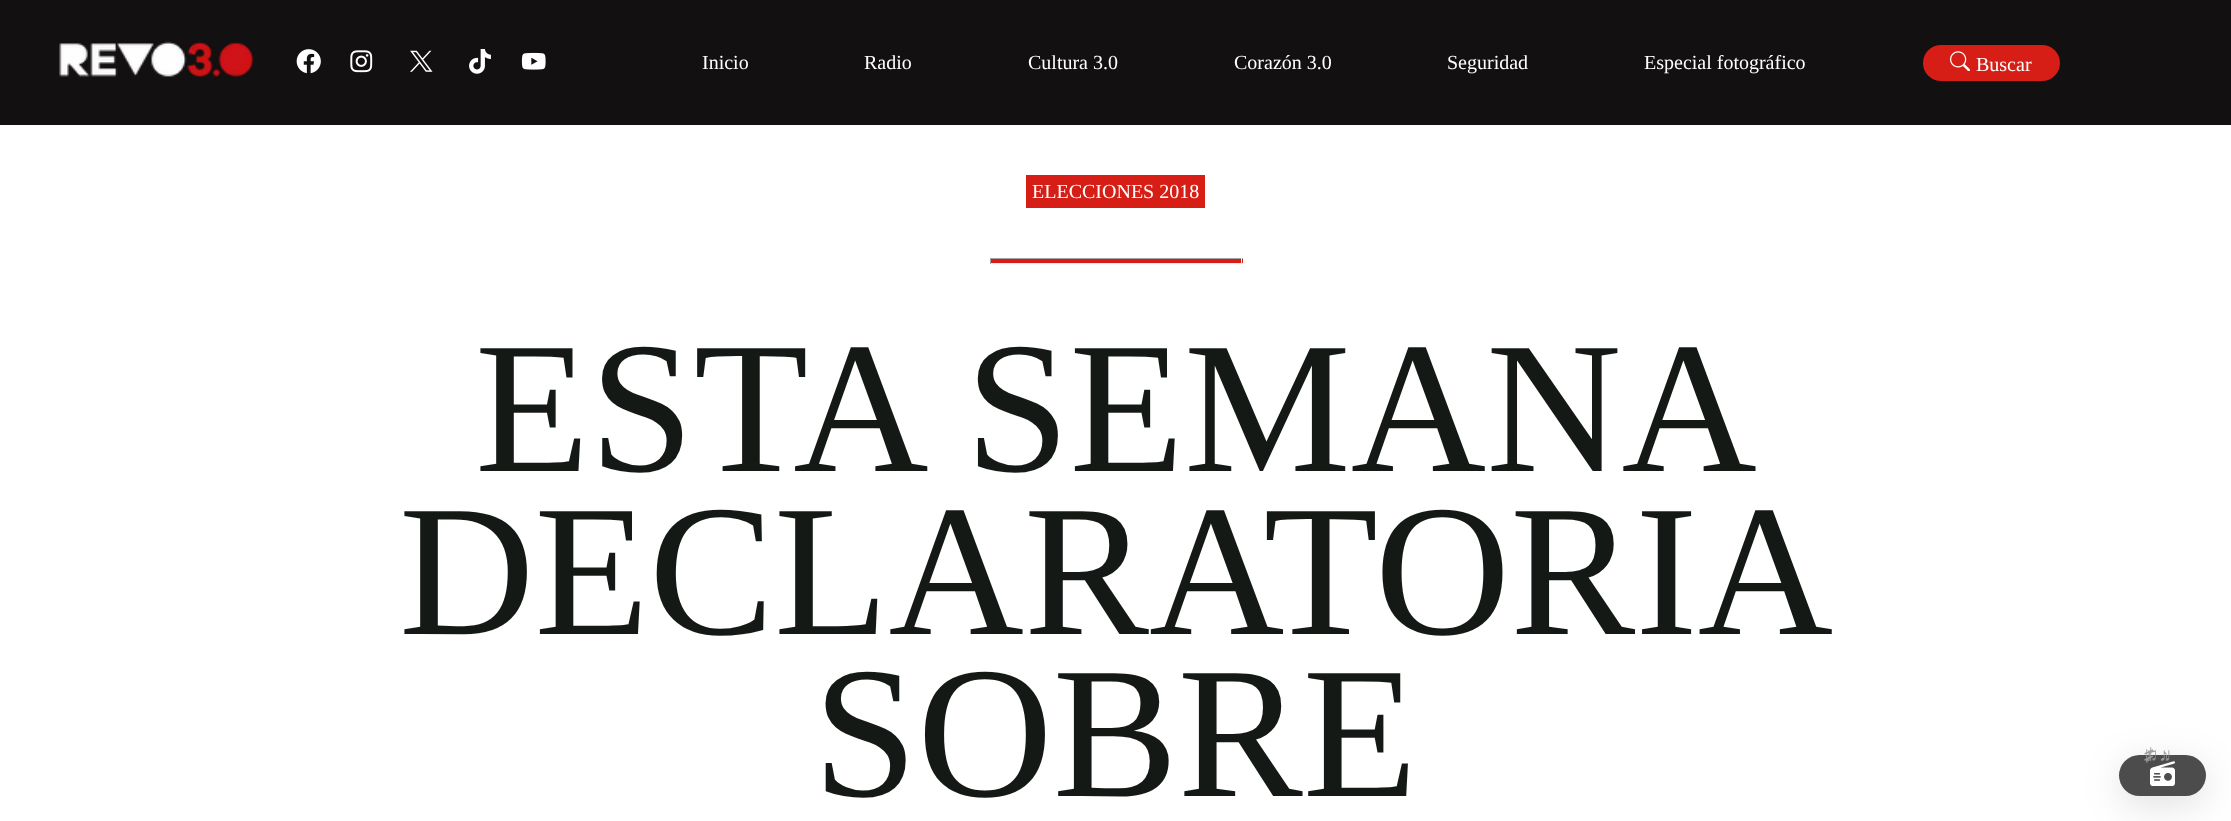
<?xml version="1.0" encoding="UTF-8"?>
<svg xmlns="http://www.w3.org/2000/svg" xmlns:xlink="http://www.w3.org/1999/xlink" width="2231" height="821">
  <defs>
    <clipPath id="clip1"><path d="M 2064 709 h 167 v 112 h -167 z m 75.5 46 h 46 c 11.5 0 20.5 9 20.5 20.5 c 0 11.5 -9 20.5 -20.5 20.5 h -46 c -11.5 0 -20.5 -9 -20.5 -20.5 c 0 -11.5 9 -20.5 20.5 -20.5 z" clip-rule="evenodd" /></clipPath>
  </defs>
  <rect width="100%" height="100%" fill="#ffffff" />
  <rect width="2231" height="125" fill="#121010" />
  <image x="59" y="41" width="195" height="36" xlink:href="image1.png" />
  <image x="296" y="49" width="25" height="25" xlink:href="image2.png" />
  <image x="350" y="50" width="23" height="23" xlink:href="image3.png" />
  <image x="410" y="50" width="23" height="22" xlink:href="image4.png" />
  <image x="469" y="49" width="22" height="25" xlink:href="image5.png" />
  <image x="521" y="52" width="25" height="18" xlink:href="image6.png" />
  <rect x="1923" y="45" width="137" height="36" rx="18" fill="#d61e16" />
  <image x="1950" y="51" width="20" height="20" xlink:href="image7.png" />
  <rect x="1026" y="175" width="179" height="33" fill="#d61e16" />
  <rect x="990" y="259" width="253" height="4" fill="#d61e16" />
  <rect x="990" y="258" width="253" height="1" fill="#9f9f9f" />
  <rect x="1241" y="258" width="1" height="6" fill="#eeeeee" />
  <rect x="990" y="263" width="253" height="1" fill="#eeeeee" />
  <rect x="990" y="258" width="1" height="6" fill="#9f9f9f" />
  <g clip-path="url(#clip1)">
    <rect x="2119" y="764" width="87" height="41" rx="20.5" fill="#63636e" fill-opacity="0.2" filter="blur(18px)" />
  </g>
  <rect x="2119" y="755" width="87" height="41" rx="20.5" fill="#000000" fill-opacity="0.7" />
  <image x="2150" y="761" width="25" height="25" xlink:href="image8.png" />
  <text x="702" y="69" style="font-family: Liberation Serif; font-size: 20px; fill: #ffffff">Inicio</text>
  <text x="864" y="69" style="font-family: Liberation Serif; font-size: 20px; fill: #ffffff">Radio</text>
  <text x="1028" y="69" style="font-family: Liberation Serif; font-size: 20px; fill: #ffffff">Cultura 3.0</text>
  <text x="1234" y="69" style="font-family: Liberation Serif; font-size: 20px; fill: #ffffff">Corazón 3.0</text>
  <text x="1447" y="69" style="font-family: Liberation Serif; font-size: 20px; fill: #ffffff">Seguridad</text>
  <text x="1644" y="69" style="font-family: Liberation Serif; font-size: 20px; fill: #ffffff">Especial fotográfico</text>
  <text x="1976" y="71" style="font-family: Liberation Serif; font-size: 20px; fill: #ffffff">Buscar</text>
  <text x="1032" y="198" style="font-family: Liberation Serif; font-size: 20px; fill: #ffffff">ELECCIONES 2018</text>
  <text x="475" y="471" style="font-family: Liberation Serif; font-size: 187.5px; fill: #141916">ESTA SEMANA</text>
  <text x="399" y="634" style="font-family: Liberation Serif; font-size: 187.5px; fill: #141916">DECLARATORIA</text>
  <text x="813" y="796" style="font-family: Liberation Serif; font-size: 187.5px; fill: #141916">SOBRE</text>
  <text x="2144" y="761" word-spacing="1" style="font-family: Liberation Serif; font-size: 19px; fill: #8f8f90">♫ ♩</text>
  <text x="2144" y="761" style="font-family: Liberation Serif; font-size: 19px; fill: #898989">♩</text>
  <text x="2144" y="761" word-spacing="1" style="font-family: Liberation Serif; font-size: 19px; fill: #9d9d9d">♯ ♪</text>
</svg>
